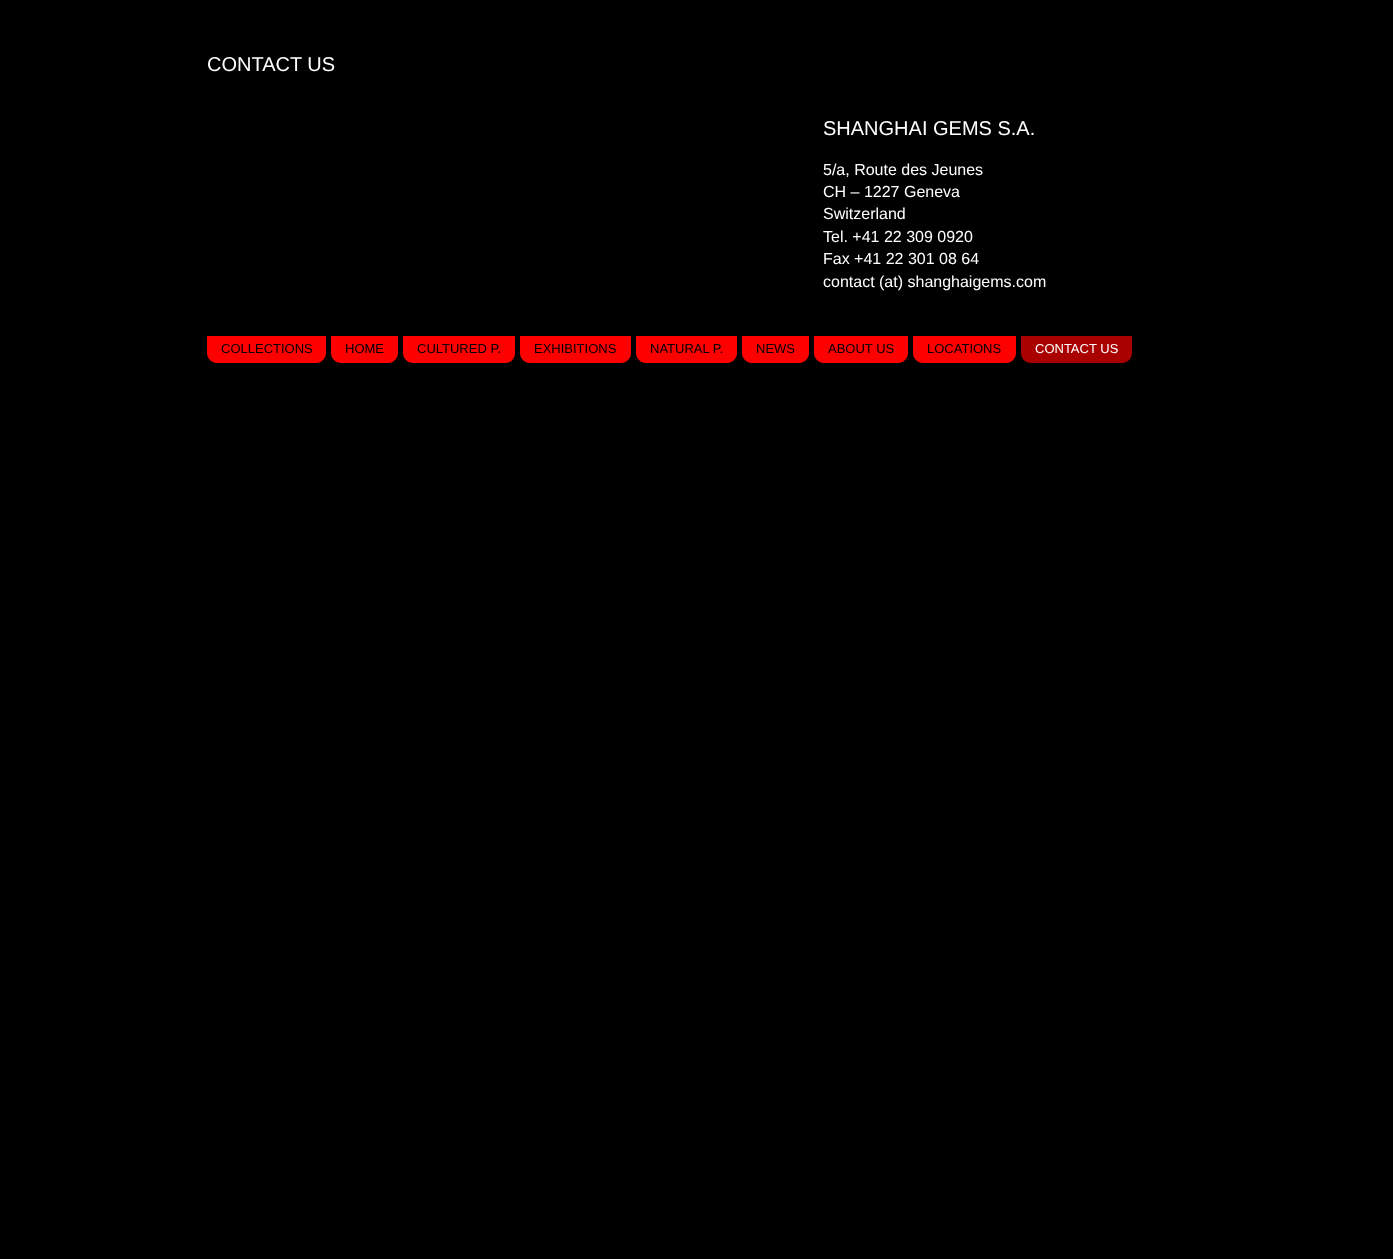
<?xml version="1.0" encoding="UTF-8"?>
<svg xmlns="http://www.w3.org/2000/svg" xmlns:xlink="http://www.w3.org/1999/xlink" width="1393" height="1259">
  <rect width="100%" height="100%" fill="#000000" />
  <path d="M 207 336 h 119 v 17 c 0 5.5 -4.5 10 -10 10 h -99 c -5.5 0 -10 -4.5 -10 -10 z" fill="#ff0000" />
  <path d="M 331 336 h 67 v 17 c 0 5.5 -4.5 10 -10 10 h -47 c -5.5 0 -10 -4.5 -10 -10 z" fill="#ff0000" />
  <path d="M 403 336 h 112 v 17 c 0 5.5 -4.5 10 -10 10 h -92 c -5.5 0 -10 -4.5 -10 -10 z" fill="#ff0000" />
  <path d="M 520 336 h 111 v 17 c 0 5.5 -4.5 10 -10 10 h -91 c -5.5 0 -10 -4.5 -10 -10 z" fill="#ff0000" />
  <path d="M 636 336 h 101 v 17 c 0 5.5 -4.5 10 -10 10 h -81 c -5.5 0 -10 -4.5 -10 -10 z" fill="#ff0000" />
  <path d="M 742 336 h 67 v 17 c 0 5.5 -4.5 10 -10 10 h -47 c -5.5 0 -10 -4.5 -10 -10 z" fill="#ff0000" />
  <path d="M 814 336 h 94 v 17 c 0 5.5 -4.5 10 -10 10 h -74 c -5.5 0 -10 -4.5 -10 -10 z" fill="#ff0000" />
  <path d="M 913 336 h 103 v 17 c 0 5.5 -4.5 10 -10 10 h -83 c -5.5 0 -10 -4.5 -10 -10 z" fill="#ff0000" />
  <path d="M 1021 336 h 111 v 17 c 0 5.5 -4.5 10 -10 10 h -91 c -5.5 0 -10 -4.5 -10 -10 z" fill="#a90000" />
  <text x="207" y="71" style="font-family: Liberation Sans; font-size: 20px; fill: #ffffff">CONTACT US</text>
  <text x="823" y="135" style="font-family: Liberation Sans; font-size: 20px; fill: #ffffff">SHANGHAI GEMS S.A.</text>
  <text x="823" y="175" style="font-family: Liberation Sans; font-size: 16px; fill: #ffffff">5/a, Route des Jeunes</text>
  <text x="823" y="197" style="font-family: Liberation Sans; font-size: 16px; fill: #ffffff">CH – 1227 Geneva</text>
  <text x="823" y="219" style="font-family: Liberation Sans; font-size: 16px; fill: #ffffff">Switzerland</text>
  <text x="823" y="242" style="font-family: Liberation Sans; font-size: 16px; fill: #ffffff">Tel. +41 22 309 0920</text>
  <text x="823" y="264" style="font-family: Liberation Sans; font-size: 16px; fill: #ffffff">Fax +41 22 301 08 64</text>
  <text x="823" y="287" style="font-family: Liberation Sans; font-size: 16px; fill: #ffffff">contact (at) shanghaigems.com</text>
  <text x="221" y="353" style="font-family: Liberation Sans; font-size: 13px; fill: #000000">COLLECTIONS</text>
  <text x="345" y="353" style="font-family: Liberation Sans; font-size: 13px; fill: #000000">HOME</text>
  <text x="417" y="353" style="font-family: Liberation Sans; font-size: 13px; fill: #000000">CULTURED P.</text>
  <text x="534" y="353" style="font-family: Liberation Sans; font-size: 13px; fill: #000000">EXHIBITIONS</text>
  <text x="650" y="353" style="font-family: Liberation Sans; font-size: 13px; fill: #000000">NATURAL P.</text>
  <text x="756" y="353" style="font-family: Liberation Sans; font-size: 13px; fill: #000000">NEWS</text>
  <text x="828" y="353" style="font-family: Liberation Sans; font-size: 13px; fill: #000000">ABOUT US</text>
  <text x="927" y="353" style="font-family: Liberation Sans; font-size: 13px; fill: #000000">LOCATIONS</text>
  <text x="1035" y="353" style="font-family: Liberation Sans; font-size: 13px; fill: #ffffff">CONTACT US</text>
</svg>
